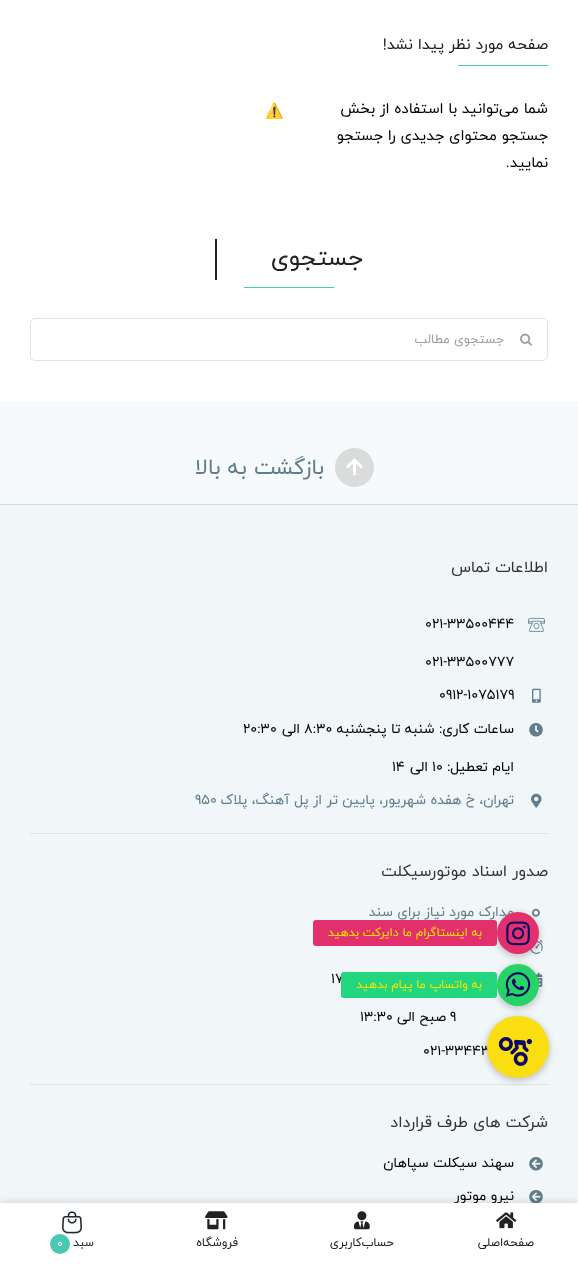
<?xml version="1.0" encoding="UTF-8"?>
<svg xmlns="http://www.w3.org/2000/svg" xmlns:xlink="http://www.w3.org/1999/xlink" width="578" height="1268">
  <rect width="100%" height="100%" fill="#ffffff" />
  <rect x="458" y="65" width="90" height="1" fill="#48cab2" />
  <rect x="215" y="239" width="2" height="41" fill="#212121" />
  <rect x="244" y="287" width="90" height="1" fill="#48cab2" />
  <rect x="30.5" y="318.5" width="517" height="42" rx="4.5" fill="none" stroke="#e2e2e2" />
  <image x="520" y="333" width="12" height="13" xlink:href="image1.png" />
  <rect y="401" width="578" height="103" fill="#f7fafd" />
  <circle cx="354.5" cy="467.5" r="19.5" fill="#dadcdc" />
  <image x="346" y="458" width="17" height="18" xlink:href="image2.png" />
  <rect y="505" width="578" height="698" fill="#f1f6f9" />
  <rect y="504" width="578" height="1" fill="#cfd8dc" />
  <image x="528" y="617" width="17" height="15" xlink:href="image3.png" />
  <image x="532" y="688" width="9" height="15" xlink:href="image4.png" />
  <image x="529" y="723" width="14" height="14" xlink:href="image5.png" />
  <image x="531" y="793" width="11" height="15" xlink:href="image6.png" />
  <rect x="30" y="833" width="518" height="1" fill="#e2e2e2" />
  <image x="532" y="908" width="8" height="9" xlink:href="image7.png" />
  <image x="530" y="939" width="13" height="15" xlink:href="image8.png" />
  <image x="534" y="972" width="9" height="15" xlink:href="image9.png" />
  <rect x="30" y="1084" width="518" height="1" fill="#e2e2e2" />
  <image x="529" y="1157" width="14" height="14" xlink:href="image10.png" />
  <image x="529" y="1190" width="14" height="13" xlink:href="image11.png" />
  <rect y="1203" width="578" height="65" fill="#000000" fill-opacity="0.16" filter="blur(4px)" />
  <rect x="496" y="965" width="44" height="44" rx="22" fill="#000000" fill-opacity="0.2" filter="blur(3px)" />
  <circle cx="518" cy="985" r="21" fill="#25d366" />
  <rect x="496" y="913" width="44" height="44" rx="22" fill="#000000" fill-opacity="0.2" filter="blur(3px)" />
  <rect x="313" y="920" width="184" height="26" rx="3" fill="#e1306c" />
  <image x="505" y="972" width="26" height="25" xlink:href="image17.png" />
  <rect x="486" y="1017" width="64" height="64" rx="32" fill="#000000" fill-opacity="0.2" filter="blur(3px)" />
  <text x="548" y="49" style="font-family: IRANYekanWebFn; font-size: 15.5px; direction: rtl; fill: #212121">صفحه مورد نظر پیدا نشد!</text>
  <text x="548" y="113" style="font-family: IRANYekanWebFn; font-size: 15px; direction: rtl; fill: #000000">شما می‌توانید با استفاده از بخش</text>
  <text x="548" y="140" style="font-family: IRANYekanWebFn; font-size: 15px; direction: rtl; fill: #000000">جستجو محتوای جدیدی را جستجو</text>
  <text x="548" y="167" style="font-family: IRANYekanWebFn; font-size: 15px; direction: rtl; fill: #000000">نمایید.</text>
  <text x="265" y="116" style="font-family: Noto Color Emoji; font-size: 15px; fill: #000000">⚠️</text>
  <text x="363" y="265" style="font-family: IRANYekanWebFn; font-size: 24px; direction: rtl; fill: #212121">جستجوی</text>
  <text x="504" y="343" style="font-family: IRANYekanWebFn; font-size: 13px; direction: rtl; fill: #9ea0a4">جستجوی مطالب</text>
  <text x="324" y="474" style="font-family: IRANYekanWebFn; font-size: 22px; direction: rtl; fill: #607d8b">بازگشت به بالا</text>
  <text x="548" y="572" style="font-family: IRANYekanWebFn; font-size: 16px; direction: rtl; fill: #333333">اطلاعات تماس</text>
  <text x="425" y="628" style="font-family: IRANYekanWebFn; font-size: 14px; fill: #000000">021-33500444</text>
  <text x="425" y="666" style="font-family: IRANYekanWebFn; font-size: 14px; fill: #000000">021-33500777</text>
  <text x="439" y="699" style="font-family: IRANYekanWebFn; font-size: 14px; fill: #000000">0912-1075179</text>
  <text x="514" y="733" style="font-family: IRANYekanWebFn; font-size: 14px; direction: rtl; fill: #000000">ساعات کاری: شنبه تا پنجشنبه</text>
  <text x="304" y="733" style="font-family: IRANYekanWebFn; font-size: 14px; fill: #000000">8:30</text>
  <text x="300" y="733" style="font-family: IRANYekanWebFn; font-size: 14px; direction: rtl; fill: #000000">الی</text>
  <text x="243" y="733" style="font-family: IRANYekanWebFn; font-size: 14px; fill: #000000">20:30</text>
  <text x="514" y="771" style="font-family: IRANYekanWebFn; font-size: 14px; direction: rtl; fill: #000000">ایام تعطیل:</text>
  <text x="432" y="771" style="font-family: IRANYekanWebFn; font-size: 14px; fill: #000000">10</text>
  <text x="428" y="771" style="font-family: IRANYekanWebFn; font-size: 14px; direction: rtl; fill: #000000">الی</text>
  <text x="392" y="771" style="font-family: IRANYekanWebFn; font-size: 14px; fill: #000000">14</text>
  <text x="514" y="804" style="font-family: IRANYekanWebFn; font-size: 14px; direction: rtl; fill: #607d8b">تهران، خ هفده شهریور، پایین تر از پل آهنگ، پلاک</text>
  <text x="195" y="804" style="font-family: IRANYekanWebFn; font-size: 14px; fill: #607d8b">950</text>
  <text x="548" y="876" style="font-family: IRANYekanWebFn; font-size: 16px; direction: rtl; fill: #333333">صدور اسناد موتورسیکلت</text>
  <text x="514" y="916" style="font-family: IRANYekanWebFn; font-size: 14px; direction: rtl; fill: #607d8b">مدارک مورد نیاز برای سند</text>
  <text x="331" y="983" style="font-family: IRANYekanWebFn; font-size: 14px; fill: #000000">17</text>
  <text x="450" y="1021" style="font-family: IRANYekanWebFn; font-size: 14px; fill: #000000">9</text>
  <text x="446" y="1021" style="font-family: IRANYekanWebFn; font-size: 14px; direction: rtl; fill: #000000">صبح الی</text>
  <text x="360" y="1021" style="font-family: IRANYekanWebFn; font-size: 14px; fill: #000000">13:30</text>
  <text x="423" y="1055" style="font-family: IRANYekanWebFn; font-size: 14px; fill: #000000">021-33443</text>
  <text x="548" y="1127" style="font-family: IRANYekanWebFn; font-size: 16px; direction: rtl; fill: #333333">شرکت های طرف قرارداد</text>
  <text x="514" y="1167" style="font-family: IRANYekanWebFn; font-size: 14px; direction: rtl; fill: #000000">سهند سیکلت سپاهان</text>
  <text x="514" y="1200" style="font-family: IRANYekanWebFn; font-size: 14px; direction: rtl; fill: #000000">نیرو موتور</text>
  <rect y="1203" width="578" height="65" fill="#ffffff" />
  <image x="496" y="1212" width="21" height="17" xlink:href="image12.png" />
  <text x="534" y="1246" style="font-family: IRANYekanWebFn; font-size: 12px; direction: rtl; fill: #212121">صفحه‌اصلی</text>
  <image x="354" y="1211" width="16" height="19" xlink:href="image13.png" />
  <text x="394" y="1246" style="font-family: IRANYekanWebFn; font-size: 12px; direction: rtl; fill: #212121">حساب‌کاربری</text>
  <image x="205" y="1211" width="23" height="19" xlink:href="image14.png" />
  <text x="238" y="1246" style="font-family: IRANYekanWebFn; font-size: 12px; direction: rtl; fill: #212121">فروشگاه</text>
  <image x="62" y="1211" width="20" height="23" xlink:href="image15.png" />
  <text x="94" y="1246" style="font-family: IRANYekanWebFn; font-size: 12px; direction: rtl; fill: #212934">سبد</text>
  <circle cx="60" cy="1244" r="10" fill="#48cab2" />
  <text x="57" y="1247" style="font-family: IRANYekanWebFn; font-size: 12px; fill: #ffffff">0</text>
  <circle cx="518" cy="933" r="21" fill="#e1306c" />
  <image x="506" y="921" width="24" height="25" xlink:href="image16.png" />
  <text x="482" y="936" style="font-family: IRANYekanWebFn; font-size: 12px; direction: rtl; fill: #f8e402">به اینستاگرام ما دایرکت بدهید</text>
  <rect x="341" y="972" width="156" height="26" rx="3" fill="#20d47b" fill-opacity="0.99" />
  <text x="482" y="988" style="font-family: IRANYekanWebFn; font-size: 12px; direction: rtl; fill: #f8e402">به واتساپ ما پیام بدهید</text>
  <circle cx="518" cy="1047" r="31" fill="#fbde12" />
  <image x="498" y="1037" width="34" height="29" xlink:href="image18.png" />
</svg>
